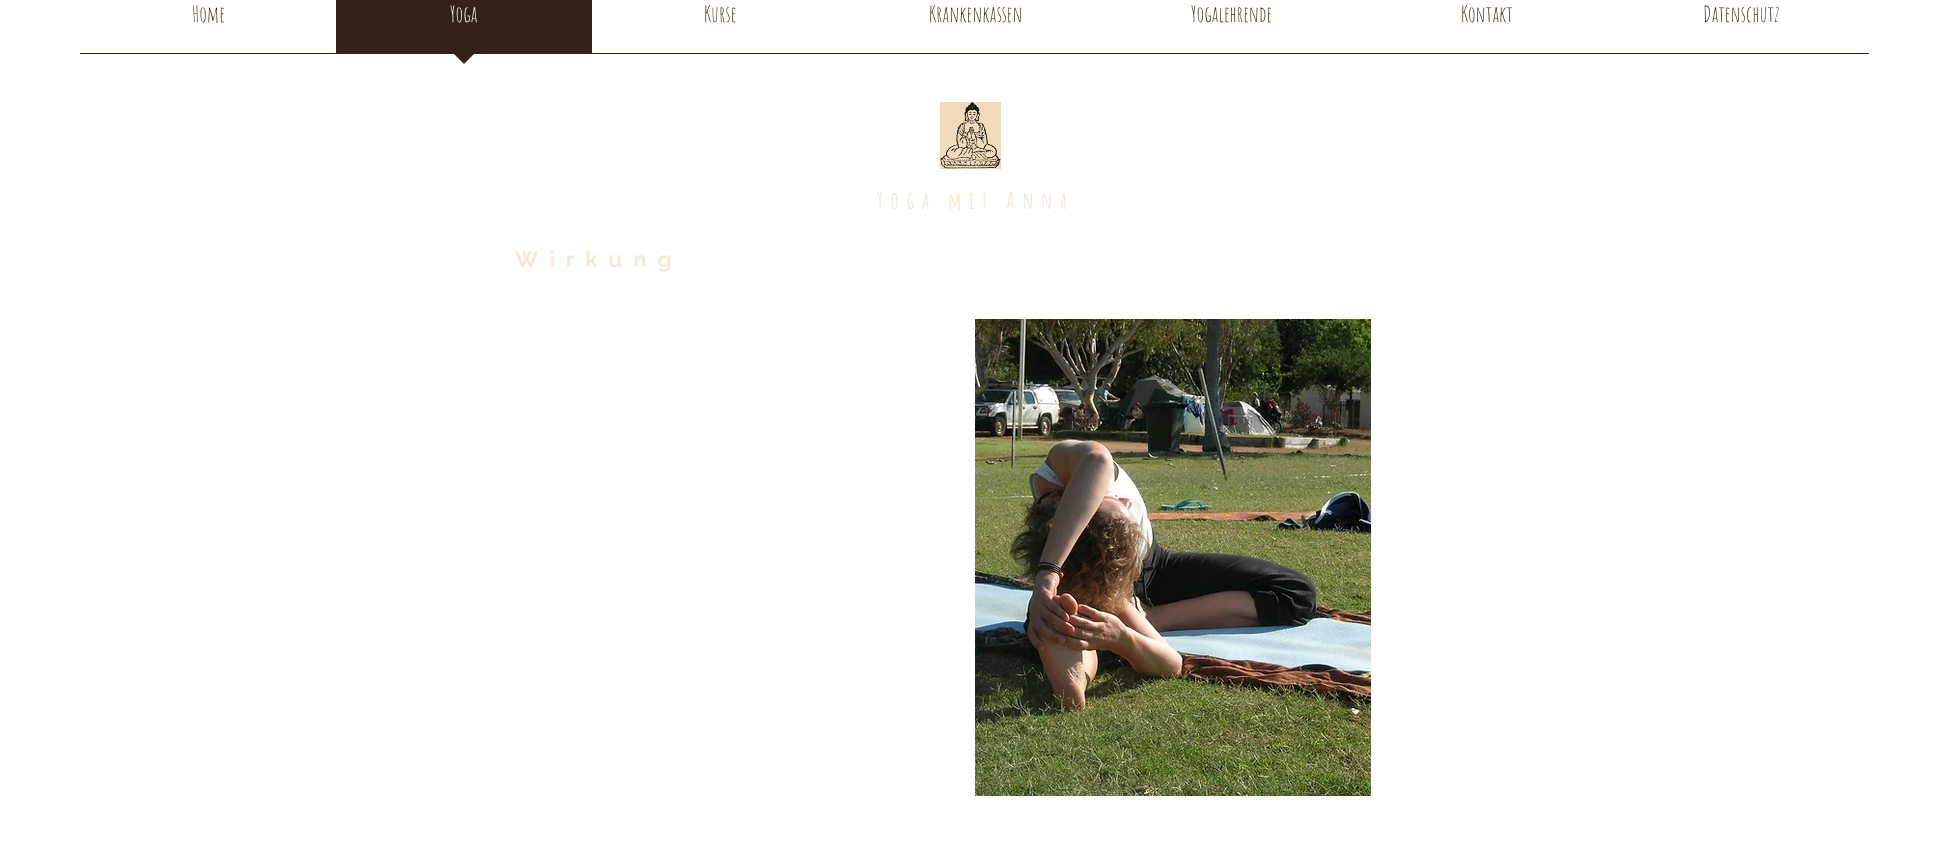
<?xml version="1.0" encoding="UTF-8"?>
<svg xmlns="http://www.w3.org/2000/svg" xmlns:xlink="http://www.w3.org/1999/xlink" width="1949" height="847">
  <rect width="100%" height="100%" fill="#ffffff" />
  <rect x="336" width="256" height="53" fill="#342216" />
  <rect x="80" y="53" width="1789" height="1" fill="#342216" />
  <path d="M 453 53 h 22 l -11 11 z" fill="#342216" />
  <image x="940" y="102" width="61" height="67" xlink:href="image1.png" />
  <image x="975" y="319" width="396" height="477" xlink:href="image2.png" />
  <text x="192" y="22" style="font-family: Amatic SC; font-size: 22px; fill: #342216">Home</text>
  <text x="450" y="22" style="font-family: Amatic SC; font-size: 22px; fill: #ffffff">Yoga</text>
  <text x="704" y="22" style="font-family: Amatic SC; font-size: 22px; fill: #342216">Kurse</text>
  <text x="929" y="22" style="font-family: Amatic SC; font-size: 22px; fill: #342216">Krankenkassen</text>
  <text x="1191" y="22" style="font-family: Amatic SC; font-size: 22px; fill: #342216">Yogalehrende</text>
  <text x="1461" y="22" style="font-family: Amatic SC; font-size: 22px; fill: #342216">Kontakt</text>
  <text x="1703" y="22" style="font-family: Amatic SC; font-size: 22px; fill: #342216">Datenschutz</text>
  <text x="877" y="209" style="font-family: Amatic SC; font-size: 24px; font-weight: bold; letter-spacing: 7.25px; fill: #fae7d5">Yoga mit Anna</text>
  <text x="515" y="267" style="font-family: Raleway; font-size: 22px; font-weight: bold; letter-spacing: 11px; fill: #fae7d5">Wirkung</text>
</svg>
